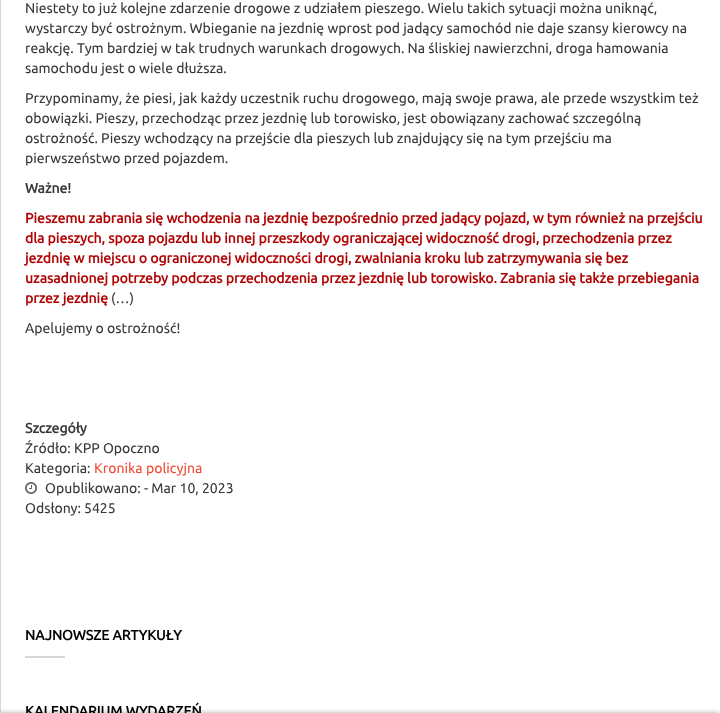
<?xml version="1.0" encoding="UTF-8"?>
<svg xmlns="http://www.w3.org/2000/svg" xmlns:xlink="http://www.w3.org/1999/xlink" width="721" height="713">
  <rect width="100%" height="100%" fill="#ffffff" />
  <rect width="1" height="713" fill="#d7d7d7" />
  <image x="25" y="482" width="12" height="12" xlink:href="image1.png" />
  <rect x="720" width="1" height="713" fill="#d7d7d7" />
  <rect x="-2" y="713" width="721" height="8" fill="#aaaaaa" filter="blur(2.5px)" />
  <rect x="25" y="656" width="40" height="2" fill="#d7d7d7" />
  <text x="25" y="13" style="font-family: Ubuntu; font-size: 14px; fill: #383838">Niestety to już kolejne zdarzenie drogowe z udziałem pieszego. Wielu takich sytuacji można uniknąć,</text>
  <text x="25" y="33" style="font-family: Ubuntu; font-size: 14px; fill: #383838">wystarczy być ostrożnym. Wbieganie na jezdnię wprost pod jadący samochód nie daje szansy kierowcy na</text>
  <text x="25" y="53" style="font-family: Ubuntu; font-size: 14px; fill: #383838">reakcję. Tym bardziej w tak trudnych warunkach drogowych. Na śliskiej nawierzchni, droga hamowania</text>
  <text x="25" y="73" style="font-family: Ubuntu; font-size: 14px; fill: #383838">samochodu jest o wiele dłuższa.</text>
  <text x="25" y="103" style="font-family: Ubuntu; font-size: 14px; fill: #383838">Przypominamy, że piesi, jak każdy uczestnik ruchu drogowego, mają swoje prawa, ale przede wszystkim też</text>
  <text x="25" y="123" style="font-family: Ubuntu; font-size: 14px; fill: #383838">obowiązki. Pieszy, przechodząc przez jezdnię lub torowisko, jest obowiązany zachować szczególną</text>
  <text x="25" y="143" style="font-family: Ubuntu; font-size: 14px; fill: #383838">ostrożność. Pieszy wchodzący na przejście dla pieszych lub znajdujący się na tym przejściu ma</text>
  <text x="25" y="163" style="font-family: Ubuntu; font-size: 14px; fill: #383838">pierwszeństwo przed pojazdem.</text>
  <text x="25" y="193" style="font-family: Ubuntu; font-size: 14px; font-weight: bold; fill: #383838">Ważne!</text>
  <text x="25" y="223" style="font-family: Ubuntu; font-size: 14px; font-weight: bold; fill: #b00505">Pieszemu zabrania się wchodzenia na jezdnię bezpośrednio przed jadący pojazd, w tym również na przejściu</text>
  <text x="25" y="243" style="font-family: Ubuntu; font-size: 14px; font-weight: bold; fill: #b00505">dla pieszych, spoza pojazdu lub innej przeszkody ograniczającej widoczność drogi, przechodzenia przez</text>
  <text x="25" y="263" style="font-family: Ubuntu; font-size: 14px; font-weight: bold; fill: #b00505">jezdnię w miejscu o ograniczonej widoczności drogi, zwalniania kroku lub zatrzymywania się bez</text>
  <text x="25" y="283" style="font-family: Ubuntu; font-size: 14px; font-weight: bold; fill: #b00505">uzasadnionej potrzeby podczas przechodzenia przez jezdnię lub torowisko. Zabrania się także przebiegania</text>
  <text x="25" y="303" style="font-family: Ubuntu; font-size: 14px; font-weight: bold; fill: #b00505">przez jezdnię</text>
  <text x="111" y="303" style="font-family: Ubuntu; font-size: 14px; fill: #383838">(…)</text>
  <text x="25" y="333" style="font-family: Ubuntu; font-size: 14px; fill: #383838">Apelujemy o ostrożność!</text>
  <text x="25" y="433" style="font-family: Ubuntu; font-size: 14px; font-weight: bold; fill: #383838">Szczegóły</text>
  <text x="25" y="453" style="font-family: Ubuntu; font-size: 14px; fill: #383838">Źródło: KPP Opoczno</text>
  <text x="25" y="473" style="font-family: Ubuntu; font-size: 14px; fill: #383838">Kategoria:</text>
  <text x="94" y="473" style="font-family: Ubuntu; font-size: 14px; fill: #f24d34">Kronika policyjna</text>
  <text x="45" y="493" style="font-family: Ubuntu; font-size: 14px; fill: #383838">Opublikowano: - Mar 10, 2023</text>
  <text x="25" y="513" style="font-family: Ubuntu; font-size: 14px; fill: #383838">Odsłony: 5425</text>
  <text x="25" y="640" style="font-family: Ubuntu; font-size: 14px; font-weight: bold; fill: #000000">NAJNOWSZE ARTYKUŁY</text>
  <text x="25" y="716" style="font-family: Ubuntu; font-size: 14px; font-weight: bold; fill: #000000">KALENDARIUM WYDARZEŃ</text>
</svg>
